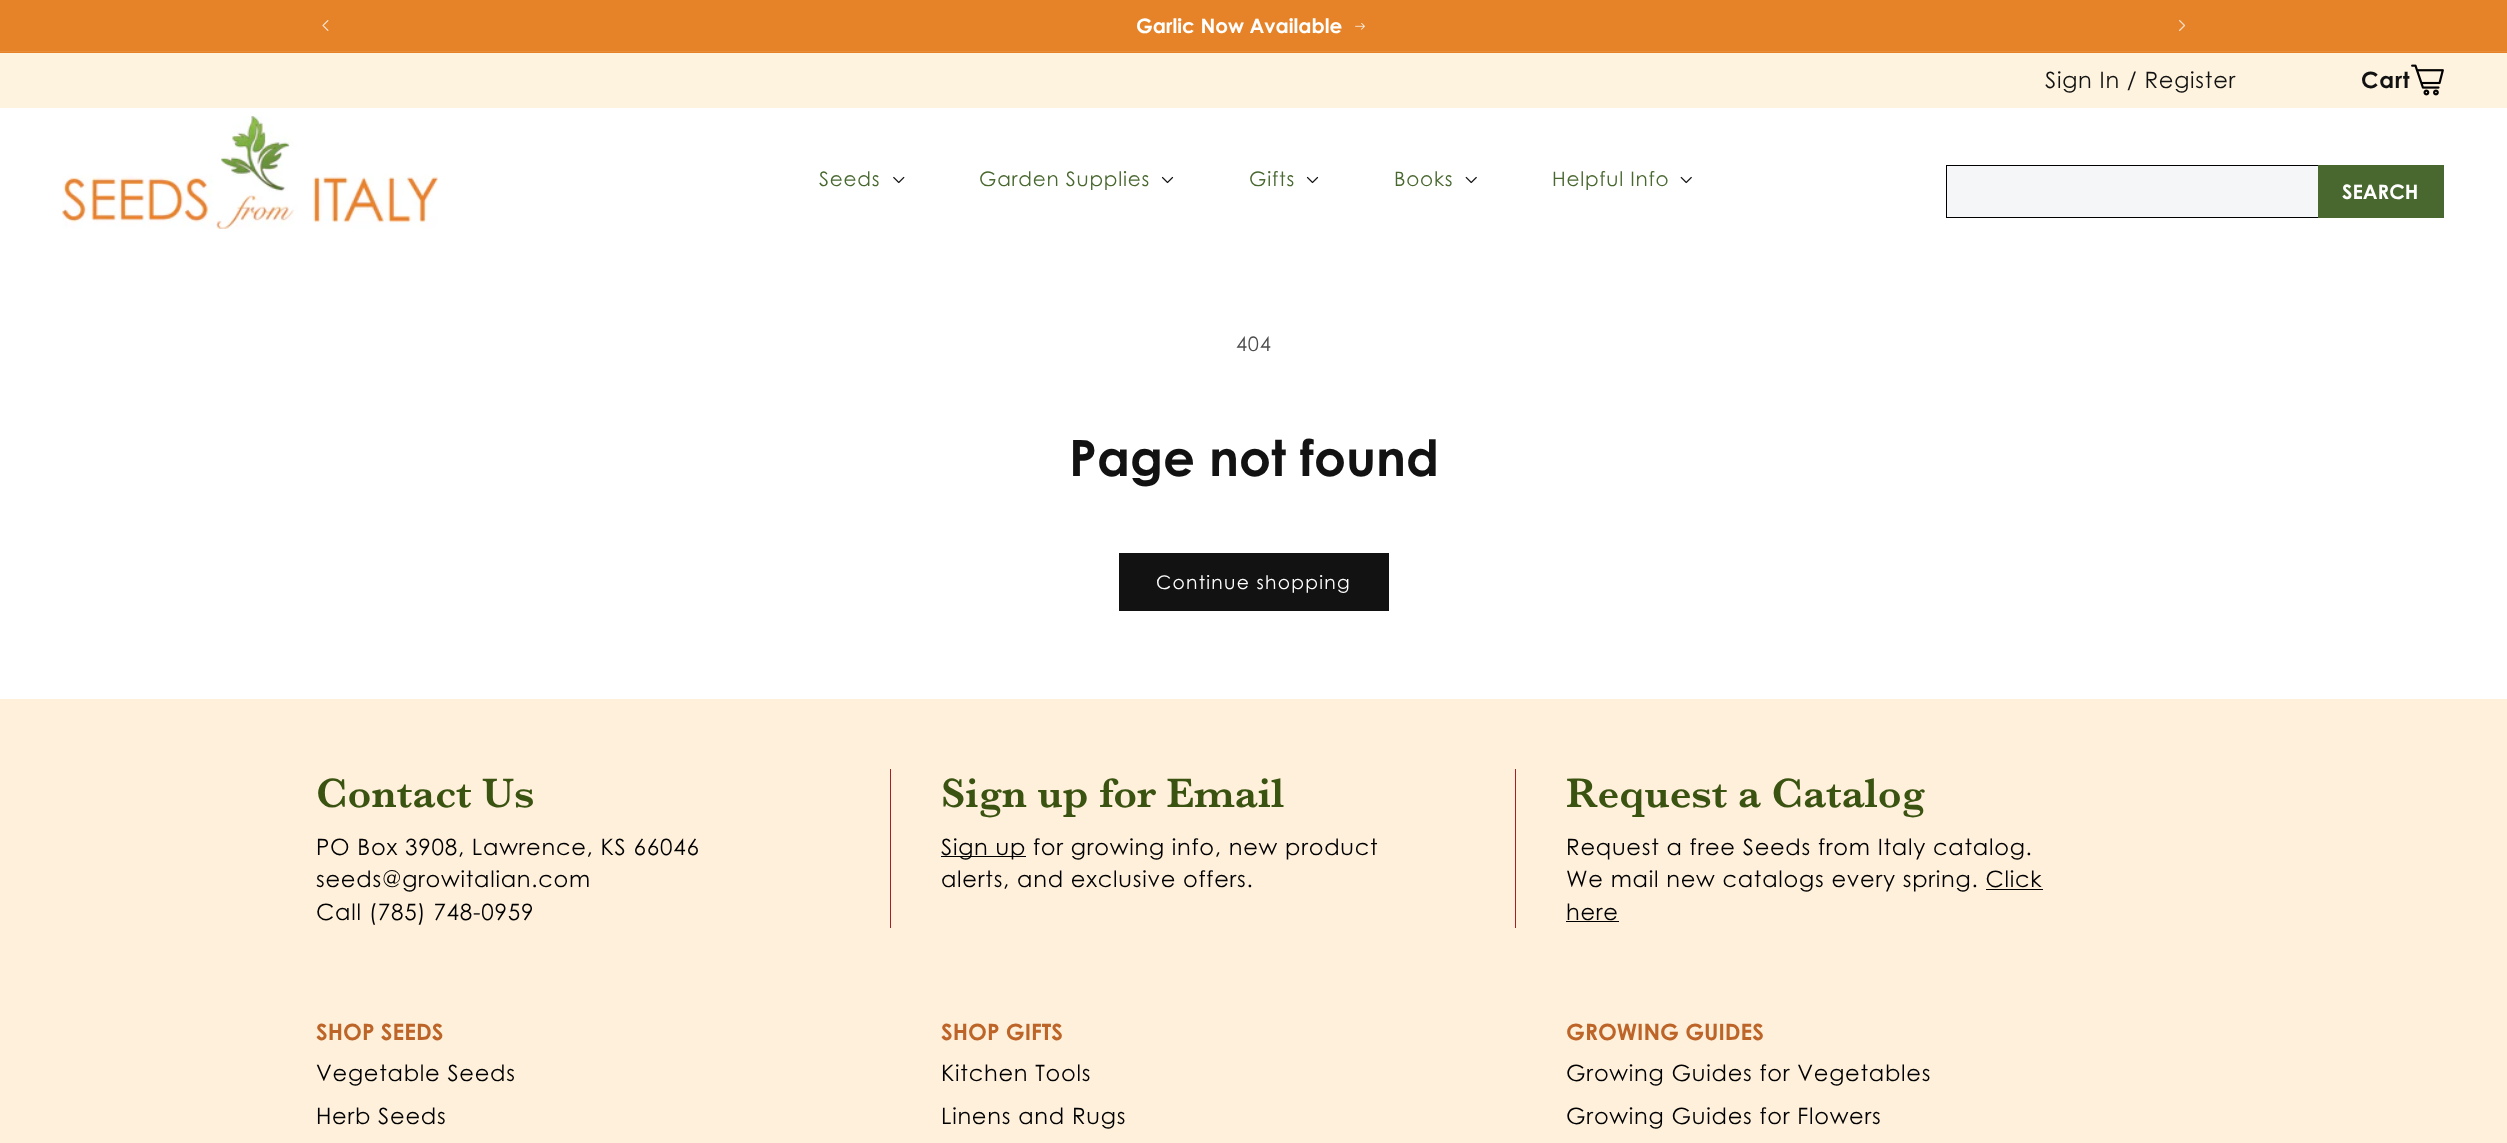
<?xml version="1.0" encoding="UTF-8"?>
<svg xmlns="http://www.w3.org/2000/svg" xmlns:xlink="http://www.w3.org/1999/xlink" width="2507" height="1143">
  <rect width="100%" height="100%" fill="#ffffff" />
  <rect width="2507" height="53" fill="#e68329" />
  <rect y="51" width="2507" height="1" fill="#e88d3a" />
  <image x="322" y="20" width="7" height="11" xlink:href="image1.png" />
  <image x="1355" y="23" width="10" height="7" xlink:href="image2.png" />
  <image x="2179" y="19" width="7" height="13" xlink:href="image3.png" />
  <rect y="53" width="2507" height="55" fill="#fef3de" />
  <image x="2411" y="64" width="33" height="32" xlink:href="image4.png" />
  <image x="62" y="116" width="376" height="113" xlink:href="image5.png" />
  <image x="893" y="176" width="12" height="8" xlink:href="image6.png" />
  <image x="1161" y="176" width="13" height="8" xlink:href="image7.png" />
  <image x="1306" y="176" width="13" height="8" xlink:href="image7.png" />
  <image x="1465" y="176" width="12" height="8" xlink:href="image8.png" />
  <image x="1680" y="176" width="12" height="8" xlink:href="image8.png" />
  <rect x="1947" y="166" width="371" height="51" fill="#f5f6f7" />
  <rect x="1946.5" y="165.5" width="497" height="52" fill="none" stroke="#000000" />
  <rect x="2318" y="165" width="126" height="53" fill="#496830" />
  <rect x="1119" y="553" width="270" height="58" fill="#121212" />
  <rect y="699" width="2507" height="444" fill="#fff0db" />
  <rect x="890" y="769" width="1" height="159" fill="#a52022" />
  <rect x="1515" y="769" width="1" height="159" fill="#a52022" />
  <rect x="941" y="856" width="85" height="1" fill="#000000" />
  <rect x="1986" y="889" width="57" height="1" fill="#000000" />
  <rect x="1566" y="921" width="53" height="1" fill="#000000" />
  <text x="1136" y="33" style="font-family: Century Gothic; font-size: 20px; font-weight: bold; fill: #ffffff">Garlic Now Available</text>
  <text x="2045" y="88" style="font-family: Century Gothic; font-size: 22.5px; letter-spacing: 0.75px; fill: #121212">Sign In / Register</text>
  <text x="2361" y="88" style="font-family: Century Gothic; font-size: 22.5px; font-weight: bold; letter-spacing: 0.75px; fill: #121212">Cart</text>
  <text x="819" y="186" style="font-family: Century Gothic; font-size: 20px; letter-spacing: 0.75px; fill: #496830">Seeds</text>
  <text x="979" y="186" style="font-family: Century Gothic; font-size: 20px; letter-spacing: 0.75px; fill: #496830">Garden Supplies</text>
  <text x="1249" y="186" style="font-family: Century Gothic; font-size: 20px; letter-spacing: 0.75px; fill: #496830">Gifts</text>
  <text x="1394" y="186" style="font-family: Century Gothic; font-size: 20px; letter-spacing: 0.75px; fill: #496830">Books</text>
  <text x="1552" y="186" style="font-family: Century Gothic; font-size: 20px; letter-spacing: 0.75px; fill: #496830">Helpful Info</text>
  <text x="2342" y="199" style="font-family: Century Gothic; font-size: 20px; font-weight: bold; fill: #ffffff">SEARCH</text>
  <text x="1236" y="351" style="font-family: Century Gothic; font-size: 20px; letter-spacing: 0.75px; fill: #4d4d4d">404</text>
  <text x="1069" y="476" style="font-family: Century Gothic; font-size: 50px; font-weight: bold; fill: #121212">Page not found</text>
  <text x="1156" y="589" style="font-family: Century Gothic; font-size: 18.75px; letter-spacing: 1.25px; fill: #ffffff">Continue shopping</text>
  <text x="316" y="807" style="font-family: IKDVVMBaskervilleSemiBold; font-size: 42.5px; font-weight: 600; fill: #3a5311">Contact Us</text>
  <text x="316" y="855" style="font-family: Century Gothic; font-size: 22.5px; letter-spacing: 0.75px; fill: #000000">PO Box 3908, Lawrence, KS 66046</text>
  <text x="316" y="887" style="font-family: Century Gothic; font-size: 22.5px; letter-spacing: 0.75px; fill: #000000">seeds@growitalian.com</text>
  <text x="316" y="920" style="font-family: Century Gothic; font-size: 22.5px; letter-spacing: 0.75px; fill: #000000">Call (785) 748-0959</text>
  <text x="941" y="807" style="font-family: IKDVVMBaskervilleSemiBold; font-size: 42.5px; font-weight: 600; fill: #3a5311">Sign up for Email</text>
  <text x="941" y="855" style="font-family: Century Gothic; font-size: 22.5px; letter-spacing: 0.75px; fill: #000000">Sign up for growing info, new product</text>
  <text x="941" y="887" style="font-family: Century Gothic; font-size: 22.5px; letter-spacing: 0.75px; fill: #000000">alerts, and exclusive offers.</text>
  <text x="1566" y="807" style="font-family: IKDVVMBaskervilleSemiBold; font-size: 42.5px; font-weight: 600; fill: #3a5311">Request a Catalog</text>
  <text x="1566" y="855" style="font-family: Century Gothic; font-size: 22.5px; letter-spacing: 0.75px; fill: #000000">Request a free Seeds from Italy catalog.</text>
  <text x="1566" y="887" style="font-family: Century Gothic; font-size: 22.5px; letter-spacing: 0.75px; fill: #000000">We mail new catalogs every spring. Click</text>
  <text x="1566" y="920" style="font-family: Century Gothic; font-size: 22.5px; letter-spacing: 0.75px; fill: #000000">here</text>
  <text x="316" y="1040" style="font-family: Century Gothic; font-size: 22.5px; font-weight: bold; fill: #bd6528">SHOP SEEDS</text>
  <text x="316" y="1081" style="font-family: Century Gothic; font-size: 22.5px; letter-spacing: 0.75px; fill: #000000">Vegetable Seeds</text>
  <text x="316" y="1124" style="font-family: Century Gothic; font-size: 22.5px; letter-spacing: 0.75px; fill: #000000">Herb Seeds</text>
  <text x="941" y="1040" style="font-family: Century Gothic; font-size: 22.5px; font-weight: bold; fill: #bd6528">SHOP GIFTS</text>
  <text x="941" y="1081" style="font-family: Century Gothic; font-size: 22.5px; letter-spacing: 0.75px; fill: #000000">Kitchen Tools</text>
  <text x="941" y="1124" style="font-family: Century Gothic; font-size: 22.5px; letter-spacing: 0.75px; fill: #000000">Linens and Rugs</text>
  <text x="1566" y="1040" style="font-family: Century Gothic; font-size: 22.5px; font-weight: bold; fill: #bd6528">GROWING GUIDES</text>
  <text x="1566" y="1081" style="font-family: Century Gothic; font-size: 22.5px; letter-spacing: 0.75px; fill: #000000">Growing Guides for Vegetables</text>
  <text x="1566" y="1124" style="font-family: Century Gothic; font-size: 22.5px; letter-spacing: 0.75px; fill: #000000">Growing Guides for Flowers</text>
</svg>
